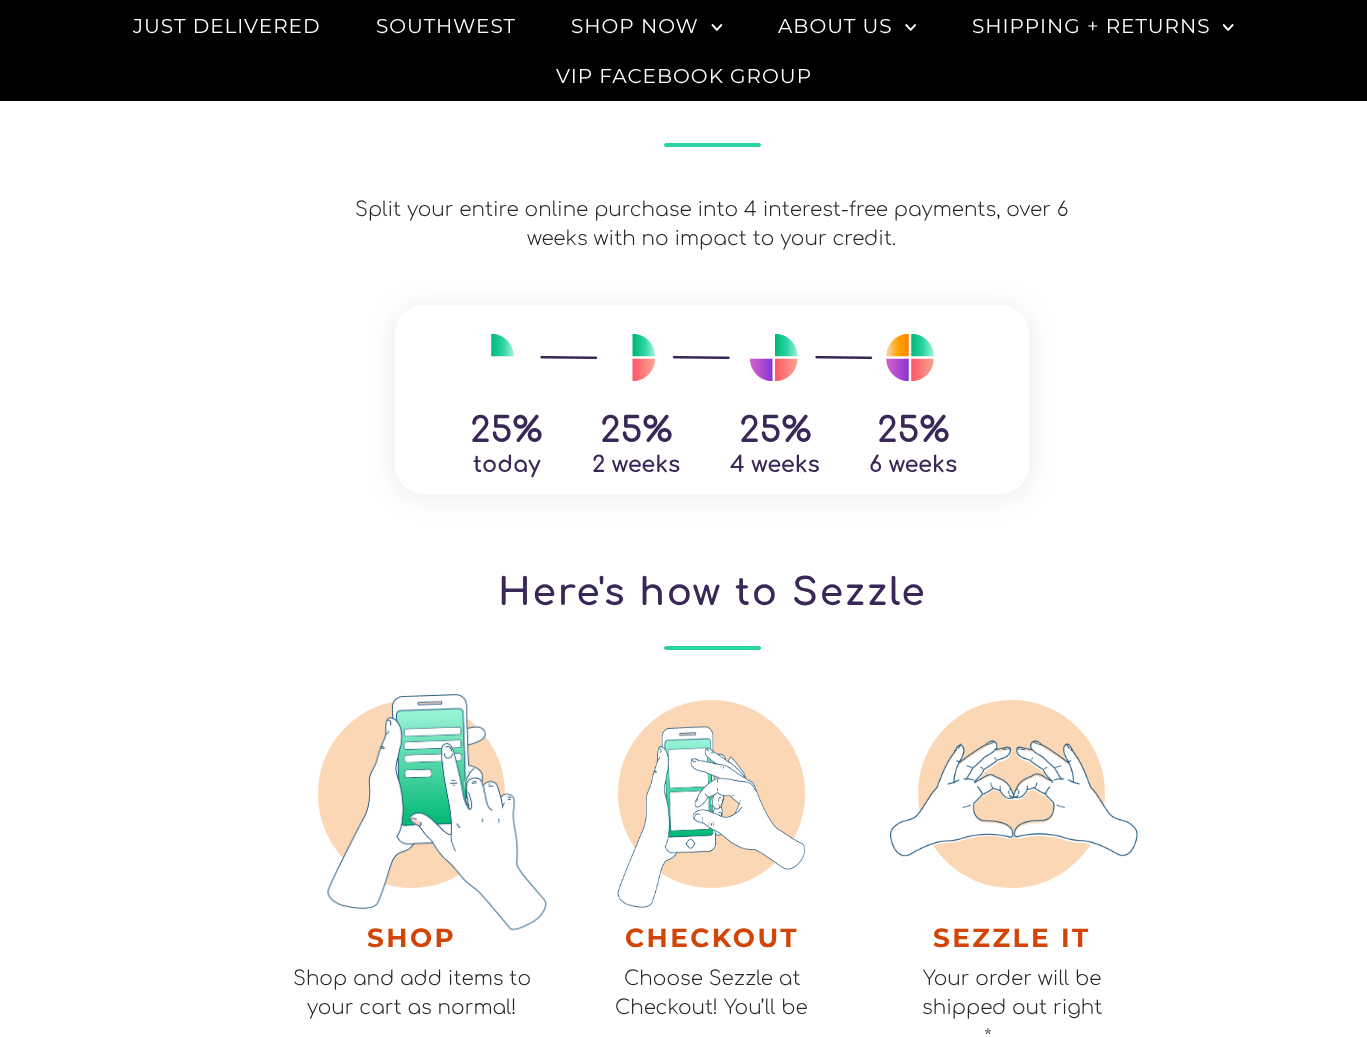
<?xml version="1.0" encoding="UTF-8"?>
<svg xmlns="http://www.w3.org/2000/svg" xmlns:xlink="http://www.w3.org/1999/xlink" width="1367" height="1038">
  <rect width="100%" height="100%" fill="#ffffff" />
  <rect width="1367" height="101" fill="#000000" />
  <image x="711" y="24" width="12" height="7" xlink:href="image1.png" />
  <image x="905" y="24" width="11" height="7" xlink:href="image2.png" />
  <image x="1223" y="24" width="11" height="7" xlink:href="image3.png" />
  <rect x="664.5" y="143.5" width="96" height="3" rx="1.5" fill="#29d3a2" stroke="#29d3a2" />
  <rect x="390" y="303" width="644" height="198" rx="34" fill="#000000" fill-opacity="0.06" filter="blur(12.5px)" />
  <rect x="395" y="305" width="634" height="189" rx="29" fill="#ffffff" />
  <image x="491" y="334" width="443" height="47" xlink:href="image4.png" />
  <rect x="664.5" y="646.5" width="96" height="3" rx="1.5" fill="#29d3a2" stroke="#29d3a2" />
  <rect x="318" y="700" width="187" height="188" rx="93.5" fill="#fcd7b6" />
  <rect x="618" y="700" width="187" height="188" rx="93.5" fill="#fcd7b6" />
  <image x="617" y="726" width="188" height="182" xlink:href="image6.png" />
  <rect x="918" y="700" width="187" height="188" rx="93.5" fill="#fcd7b6" />
  <image x="890" y="740" width="248" height="117" xlink:href="image7.png" />
  <text x="133" y="33" style="font-family: Montserrat; font-size: 20px; letter-spacing: 1px; fill: #ffffff">JUST DELIVERED</text>
  <text x="376" y="33" style="font-family: Montserrat; font-size: 20px; letter-spacing: 1px; fill: #ffffff">SOUTHWEST</text>
  <text x="571" y="33" style="font-family: Montserrat; font-size: 20px; letter-spacing: 1px; fill: #ffffff">SHOP NOW</text>
  <text x="778" y="33" style="font-family: Montserrat; font-size: 20px; letter-spacing: 1px; fill: #ffffff">ABOUT US</text>
  <text x="972" y="33" style="font-family: Montserrat; font-size: 20px; letter-spacing: 1px; fill: #ffffff">SHIPPING + RETURNS</text>
  <text x="556" y="83" style="font-family: Montserrat; font-size: 20px; letter-spacing: 1px; fill: #ffffff">VIP FACEBOOK GROUP</text>
  <text x="355" y="216" style="font-family: Comfortaa; font-size: 20px; font-weight: 300; fill: #272727">Split your entire online purchase into 4 interest-free payments, over 6</text>
  <text x="527" y="245" style="font-family: Comfortaa; font-size: 20px; font-weight: 300; fill: #272727">weeks with no impact to your credit.</text>
  <text x="470" y="442" style="font-family: Comfortaa; font-size: 35px; font-weight: bold; fill: #382757">25%</text>
  <text x="473" y="472" style="font-family: Comfortaa; font-size: 22.5px; font-weight: bold; fill: #382757">today</text>
  <text x="600" y="442" style="font-family: Comfortaa; font-size: 35px; font-weight: bold; fill: #382757">25%</text>
  <text x="592" y="472" style="font-family: Comfortaa; font-size: 22.5px; font-weight: bold; fill: #382757">2 weeks</text>
  <text x="739" y="442" style="font-family: Comfortaa; font-size: 35px; font-weight: bold; fill: #382757">25%</text>
  <text x="730" y="472" style="font-family: Comfortaa; font-size: 22.5px; font-weight: bold; fill: #382757">4 weeks</text>
  <text x="877" y="442" style="font-family: Comfortaa; font-size: 35px; font-weight: bold; fill: #382757">25%</text>
  <text x="869" y="472" style="font-family: Comfortaa; font-size: 22.5px; font-weight: bold; fill: #382757">6 weeks</text>
  <text x="498" y="605" style="font-family: Comfortaa; font-size: 37.5px; font-weight: bold; letter-spacing: 1.9px; fill: #382757">Here's how to Sezzle</text>
  <text x="367" y="947" style="font-family: Montserrat; font-size: 26.25px; font-weight: bold; letter-spacing: 2.5px; fill: #d14507">SHOP</text>
  <image x="327" y="694" width="220" height="237" xlink:href="image5.png" />
  <text x="293" y="985" style="font-family: Comfortaa; font-size: 20px; font-weight: 300; fill: #272727">Shop and add items to</text>
  <text x="307" y="1014" style="font-family: Comfortaa; font-size: 20px; font-weight: 300; fill: #272727">your cart as normal!</text>
  <text x="625" y="947" style="font-family: Montserrat; font-size: 26.25px; font-weight: bold; letter-spacing: 2.5px; fill: #d14507">CHECKOUT</text>
  <text x="624" y="985" style="font-family: Comfortaa; font-size: 20px; font-weight: 300; fill: #272727">Choose Sezzle at</text>
  <text x="615" y="1014" style="font-family: Comfortaa; font-size: 20px; font-weight: 300; fill: #272727">Checkout! You’ll be</text>
  <text x="933" y="947" style="font-family: Montserrat; font-size: 26.25px; font-weight: bold; letter-spacing: 2.5px; fill: #d14507">SEZZLE IT</text>
  <text x="923" y="985" style="font-family: Comfortaa; font-size: 20px; font-weight: 300; fill: #272727">Your order will be</text>
  <text x="922" y="1014" style="font-family: Comfortaa; font-size: 20px; font-weight: 300; fill: #272727">shipped out right</text>
  <text x="984" y="1044" style="font-family: Comfortaa; font-size: 20px; font-weight: 300; fill: #272727">*</text>
</svg>
